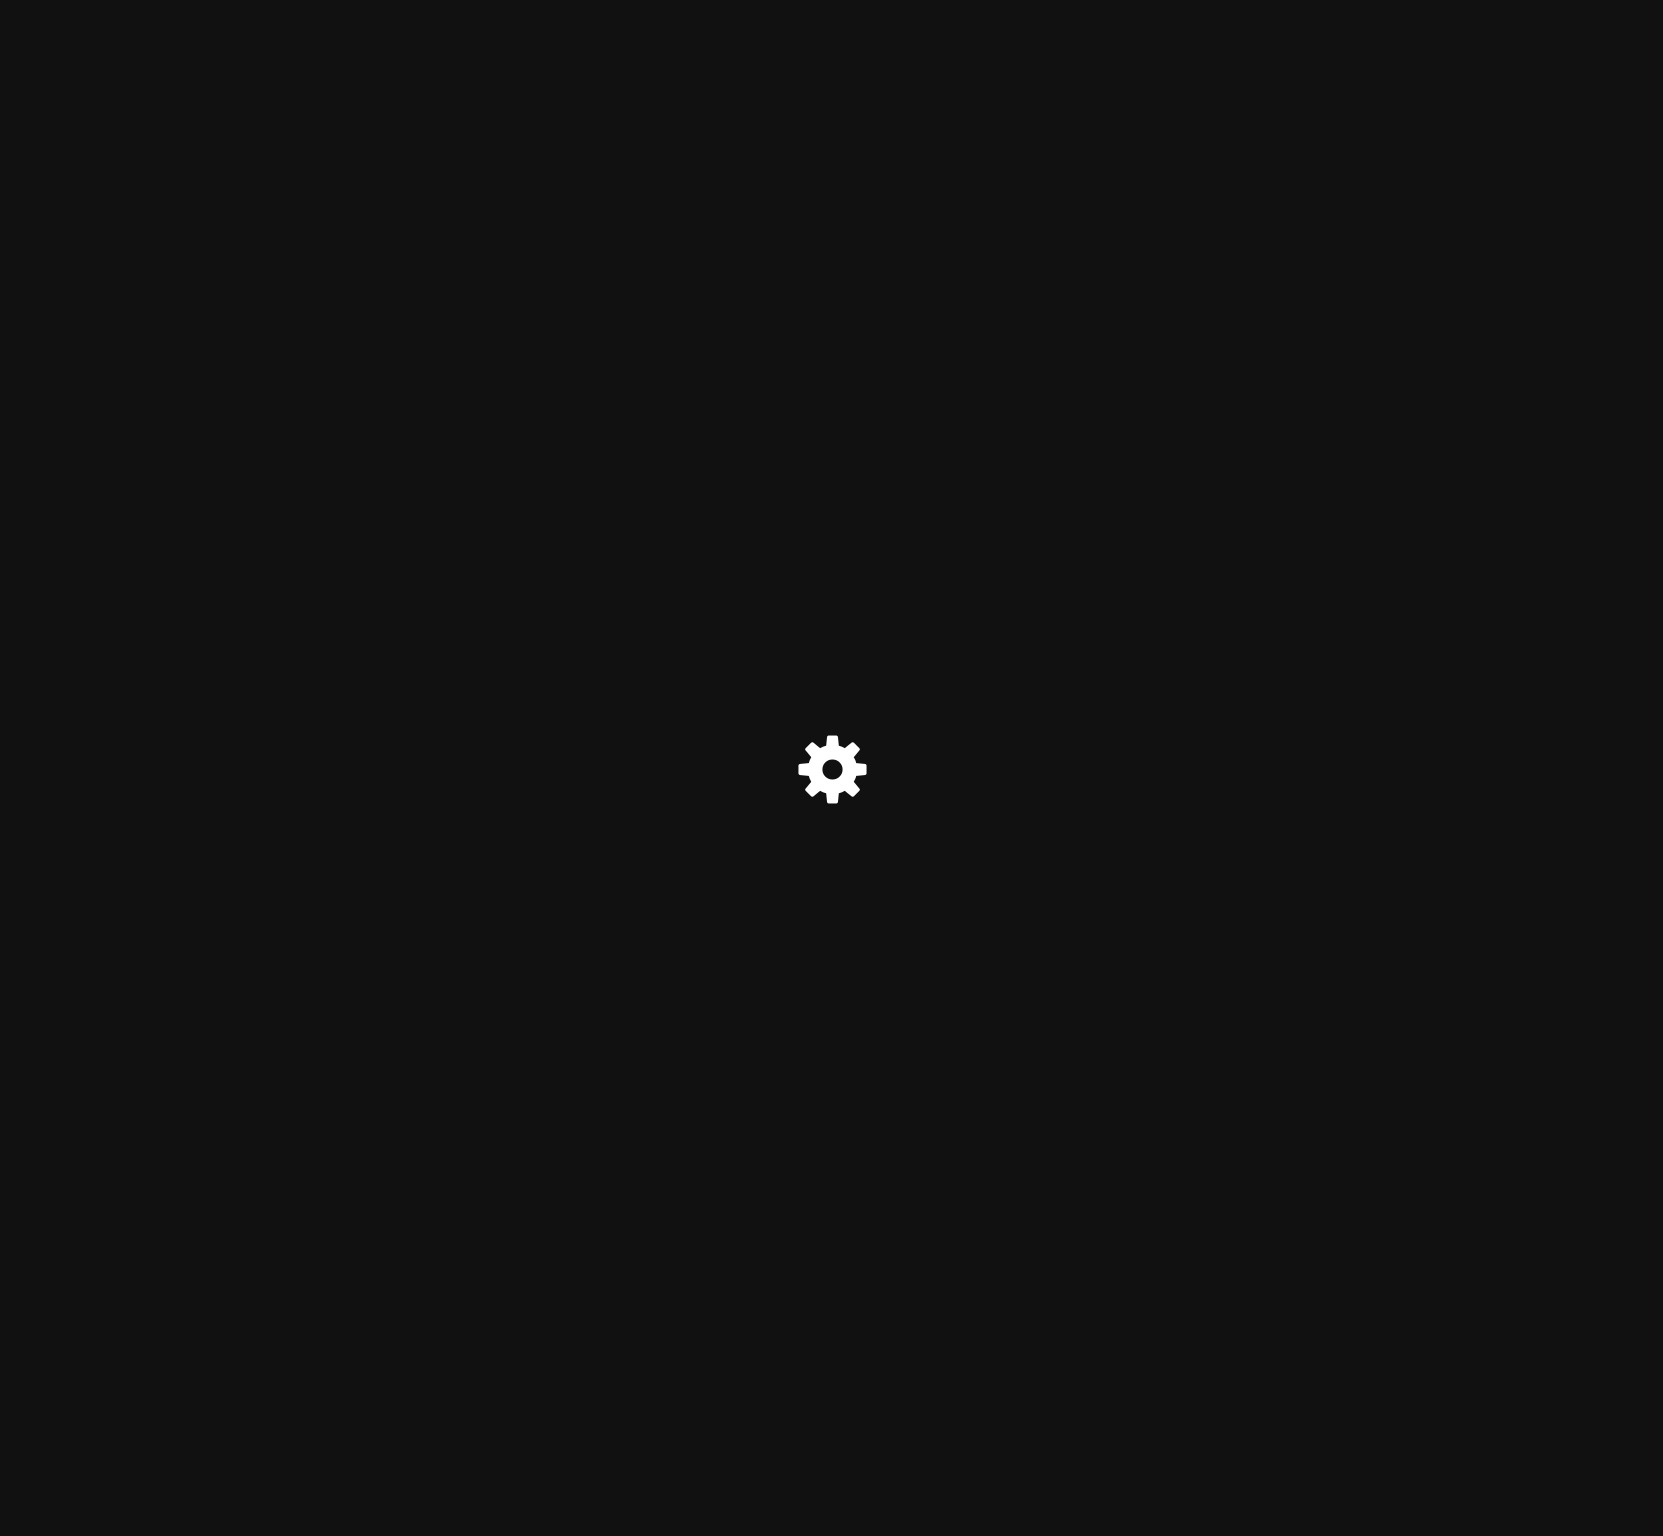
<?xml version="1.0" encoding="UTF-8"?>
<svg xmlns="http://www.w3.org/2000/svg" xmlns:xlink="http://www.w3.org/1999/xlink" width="1663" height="1536">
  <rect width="100%" height="100%" fill="#111111" />
  <image x="798" y="735" width="69" height="69" xlink:href="image1.png" />
</svg>
